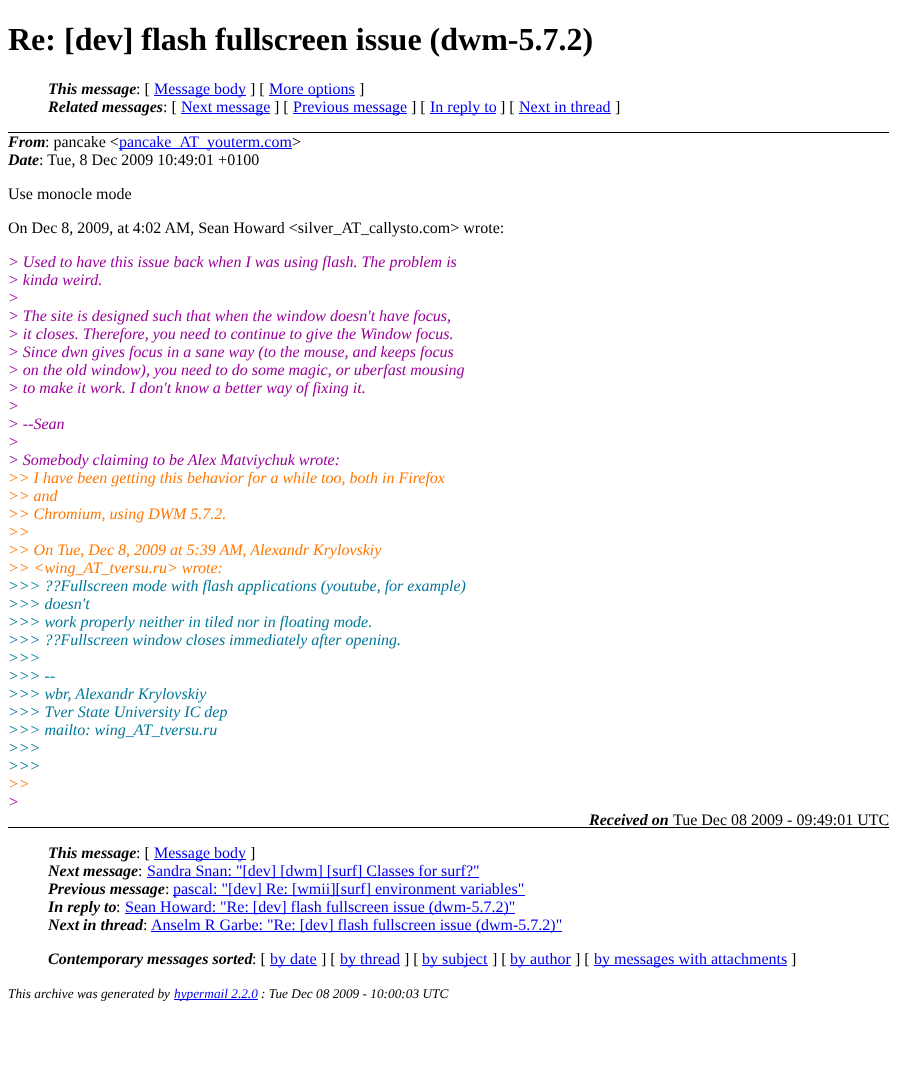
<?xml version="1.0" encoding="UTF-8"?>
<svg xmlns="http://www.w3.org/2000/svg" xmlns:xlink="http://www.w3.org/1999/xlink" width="897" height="1088">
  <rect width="100%" height="100%" fill="#ffffff" />
  <rect x="8" y="132" width="881" height="1" fill="#000000" />
  <rect x="154" y="95" width="92" height="1" fill="#0000ee" />
  <rect x="269" y="95" width="86" height="1" fill="#0000ee" />
  <rect x="181" y="113" width="89" height="1" fill="#0000ee" />
  <rect x="293" y="113" width="114" height="1" fill="#0000ee" />
  <rect x="430" y="113" width="66" height="1" fill="#0000ee" />
  <rect x="519" y="113" width="92" height="1" fill="#0000ee" />
  <rect x="119" y="148" width="173" height="1" fill="#0000ee" />
  <rect x="8" y="827" width="881" height="1" fill="#000000" />
  <rect x="154" y="859" width="92" height="1" fill="#0000ee" />
  <rect x="147" y="877" width="332" height="1" fill="#0000ee" />
  <rect x="173" y="895" width="352" height="1" fill="#0000ee" />
  <rect x="125" y="913" width="390" height="1" fill="#0000ee" />
  <rect x="151" y="931" width="411" height="1" fill="#0000ee" />
  <rect x="270" y="965" width="47" height="1" fill="#0000ee" />
  <rect x="340" y="965" width="60" height="1" fill="#0000ee" />
  <rect x="422" y="965" width="66" height="1" fill="#0000ee" />
  <rect x="510" y="965" width="61" height="1" fill="#0000ee" />
  <rect x="594" y="965" width="193" height="1" fill="#0000ee" />
  <rect x="174" y="999" width="84" height="1" fill="#0000ee" />
  <text x="8" y="50" style="font-family: Liberation Serif; font-size: 32px; font-weight: bold; fill: #000000">Re: [dev] flash fullscreen issue (dwm-5.7.2)</text>
  <text x="48" y="94" style="font-family: Liberation Serif; font-size: 16px; font-weight: bold; font-style: italic; fill: #000000">This message</text>
  <text x="136" y="94" style="font-family: Liberation Serif; font-size: 16px; fill: #000000">: [</text>
  <text x="154" y="94" style="font-family: Liberation Serif; font-size: 16px; fill: #0000ee">Message body</text>
  <text x="250" y="94" style="font-family: Liberation Serif; font-size: 16px; fill: #000000">] [</text>
  <text x="269" y="94" style="font-family: Liberation Serif; font-size: 16px; fill: #0000ee">More options</text>
  <text x="359" y="94" style="font-family: Liberation Serif; font-size: 16px; fill: #000000">]</text>
  <text x="48" y="112" style="font-family: Liberation Serif; font-size: 16px; font-weight: bold; font-style: italic; fill: #000000">Related messages</text>
  <text x="163" y="112" style="font-family: Liberation Serif; font-size: 16px; fill: #000000">: [</text>
  <text x="181" y="112" style="font-family: Liberation Serif; font-size: 16px; fill: #0000ee">Next message</text>
  <text x="274" y="112" style="font-family: Liberation Serif; font-size: 16px; fill: #000000">] [</text>
  <text x="293" y="112" style="font-family: Liberation Serif; font-size: 16px; fill: #0000ee">Previous message</text>
  <text x="411" y="112" style="font-family: Liberation Serif; font-size: 16px; fill: #000000">] [</text>
  <text x="430" y="112" style="font-family: Liberation Serif; font-size: 16px; fill: #0000ee">In reply to</text>
  <text x="500" y="112" style="font-family: Liberation Serif; font-size: 16px; fill: #000000">] [</text>
  <text x="519" y="112" style="font-family: Liberation Serif; font-size: 16px; fill: #0000ee">Next in thread</text>
  <text x="615" y="112" style="font-family: Liberation Serif; font-size: 16px; fill: #000000">]</text>
  <text x="8" y="147" style="font-family: Liberation Serif; font-size: 16px; font-weight: bold; font-style: italic; fill: #000000">From</text>
  <text x="45" y="147" style="font-family: Liberation Serif; font-size: 16px; fill: #000000">: pancake &lt;</text>
  <text x="119" y="147" style="font-family: Liberation Serif; font-size: 16px; fill: #0000ee">pancake_AT_youterm.com</text>
  <text x="292" y="147" style="font-family: Liberation Serif; font-size: 16px; fill: #000000">&gt;</text>
  <text x="8" y="165" style="font-family: Liberation Serif; font-size: 16px; font-weight: bold; font-style: italic; fill: #000000">Date</text>
  <text x="39" y="165" style="font-family: Liberation Serif; font-size: 16px; fill: #000000">: Tue, 8 Dec 2009 10:49:01 +0100</text>
  <text x="8" y="199" style="font-family: Liberation Serif; font-size: 16px; fill: #000000">Use monocle mode</text>
  <text x="8" y="233" style="font-family: Liberation Serif; font-size: 16px; fill: #000000">On Dec 8, 2009, at 4:02 AM, Sean Howard &lt;silver_AT_callysto.com&gt; wrote:</text>
  <text x="8" y="267" style="font-family: Liberation Serif; font-size: 16px; font-style: italic; fill: #990099">&gt; Used to have this issue back when I was using flash. The problem is</text>
  <text x="8" y="285" style="font-family: Liberation Serif; font-size: 16px; font-style: italic; fill: #990099">&gt; kinda weird.</text>
  <text x="8" y="303" style="font-family: Liberation Serif; font-size: 16px; font-style: italic; fill: #990099">&gt;</text>
  <text x="8" y="321" style="font-family: Liberation Serif; font-size: 16px; font-style: italic; fill: #990099">&gt; The site is designed such that when the window doesn't have focus,</text>
  <text x="8" y="339" style="font-family: Liberation Serif; font-size: 16px; font-style: italic; fill: #990099">&gt; it closes. Therefore, you need to continue to give the Window focus.</text>
  <text x="8" y="357" style="font-family: Liberation Serif; font-size: 16px; font-style: italic; fill: #990099">&gt; Since dwn gives focus in a sane way (to the mouse, and keeps focus</text>
  <text x="8" y="375" style="font-family: Liberation Serif; font-size: 16px; font-style: italic; fill: #990099">&gt; on the old window), you need to do some magic, or uberfast mousing</text>
  <text x="8" y="393" style="font-family: Liberation Serif; font-size: 16px; font-style: italic; fill: #990099">&gt; to make it work. I don't know a better way of fixing it.</text>
  <text x="8" y="411" style="font-family: Liberation Serif; font-size: 16px; font-style: italic; fill: #990099">&gt;</text>
  <text x="8" y="429" style="font-family: Liberation Serif; font-size: 16px; font-style: italic; fill: #990099">&gt; --Sean</text>
  <text x="8" y="447" style="font-family: Liberation Serif; font-size: 16px; font-style: italic; fill: #990099">&gt;</text>
  <text x="8" y="465" style="font-family: Liberation Serif; font-size: 16px; font-style: italic; fill: #990099">&gt; Somebody claiming to be Alex Matviychuk wrote:</text>
  <text x="8" y="483" style="font-family: Liberation Serif; font-size: 16px; font-style: italic; fill: #ff7700">&gt;&gt; I have been getting this behavior for a while too, both in Firefox</text>
  <text x="8" y="501" style="font-family: Liberation Serif; font-size: 16px; font-style: italic; fill: #ff7700">&gt;&gt; and</text>
  <text x="8" y="519" style="font-family: Liberation Serif; font-size: 16px; font-style: italic; fill: #ff7700">&gt;&gt; Chromium, using DWM 5.7.2.</text>
  <text x="8" y="537" style="font-family: Liberation Serif; font-size: 16px; font-style: italic; fill: #ff7700">&gt;&gt;</text>
  <text x="8" y="555" style="font-family: Liberation Serif; font-size: 16px; font-style: italic; fill: #ff7700">&gt;&gt; On Tue, Dec 8, 2009 at 5:39 AM, Alexandr Krylovskiy</text>
  <text x="8" y="573" style="font-family: Liberation Serif; font-size: 16px; font-style: italic; fill: #ff7700">&gt;&gt; &lt;wing_AT_tversu.ru&gt; wrote:</text>
  <text x="8" y="591" style="font-family: Liberation Serif; font-size: 16px; font-style: italic; fill: #007799">&gt;&gt;&gt; ??Fullscreen mode with flash applications (youtube, for example)</text>
  <text x="8" y="609" style="font-family: Liberation Serif; font-size: 16px; font-style: italic; fill: #007799">&gt;&gt;&gt; doesn't</text>
  <text x="8" y="627" style="font-family: Liberation Serif; font-size: 16px; font-style: italic; fill: #007799">&gt;&gt;&gt; work properly neither in tiled nor in floating mode.</text>
  <text x="8" y="645" style="font-family: Liberation Serif; font-size: 16px; font-style: italic; fill: #007799">&gt;&gt;&gt; ??Fullscreen window closes immediately after opening.</text>
  <text x="8" y="663" style="font-family: Liberation Serif; font-size: 16px; font-style: italic; fill: #007799">&gt;&gt;&gt;</text>
  <text x="8" y="681" style="font-family: Liberation Serif; font-size: 16px; font-style: italic; fill: #007799">&gt;&gt;&gt; --</text>
  <text x="8" y="699" style="font-family: Liberation Serif; font-size: 16px; font-style: italic; fill: #007799">&gt;&gt;&gt; wbr, Alexandr Krylovskiy</text>
  <text x="8" y="717" style="font-family: Liberation Serif; font-size: 16px; font-style: italic; fill: #007799">&gt;&gt;&gt; Tver State University IC dep</text>
  <text x="8" y="735" style="font-family: Liberation Serif; font-size: 16px; font-style: italic; fill: #007799">&gt;&gt;&gt; mailto: wing_AT_tversu.ru</text>
  <text x="8" y="753" style="font-family: Liberation Serif; font-size: 16px; font-style: italic; fill: #007799">&gt;&gt;&gt;</text>
  <text x="8" y="771" style="font-family: Liberation Serif; font-size: 16px; font-style: italic; fill: #007799">&gt;&gt;&gt;</text>
  <text x="8" y="789" style="font-family: Liberation Serif; font-size: 16px; font-style: italic; fill: #ff7700">&gt;&gt;</text>
  <text x="8" y="807" style="font-family: Liberation Serif; font-size: 16px; font-style: italic; fill: #990099">&gt;</text>
  <text x="589" y="825" style="font-family: Liberation Serif; font-size: 16px; font-weight: bold; font-style: italic; fill: #000000">Received on</text>
  <text x="673" y="825" style="font-family: Liberation Serif; font-size: 16px; fill: #000000">Tue Dec 08 2009 - 09:49:01 UTC</text>
  <text x="48" y="858" style="font-family: Liberation Serif; font-size: 16px; font-weight: bold; font-style: italic; fill: #000000">This message</text>
  <text x="136" y="858" style="font-family: Liberation Serif; font-size: 16px; fill: #000000">: [</text>
  <text x="154" y="858" style="font-family: Liberation Serif; font-size: 16px; fill: #0000ee">Message body</text>
  <text x="250" y="858" style="font-family: Liberation Serif; font-size: 16px; fill: #000000">]</text>
  <text x="48" y="876" style="font-family: Liberation Serif; font-size: 16px; font-weight: bold; font-style: italic; fill: #000000">Next message</text>
  <text x="138" y="876" style="font-family: Liberation Serif; font-size: 16px; fill: #000000">:</text>
  <text x="147" y="876" style="font-family: Liberation Serif; font-size: 16px; fill: #0000ee">Sandra Snan: "[dev] [dwm] [surf] Classes for surf?"</text>
  <text x="48" y="894" style="font-family: Liberation Serif; font-size: 16px; font-weight: bold; font-style: italic; fill: #000000">Previous message</text>
  <text x="165" y="894" style="font-family: Liberation Serif; font-size: 16px; fill: #000000">:</text>
  <text x="173" y="894" style="font-family: Liberation Serif; font-size: 16px; fill: #0000ee">pascal: "[dev] Re: [wmii][surf] environment variables"</text>
  <text x="48" y="912" style="font-family: Liberation Serif; font-size: 16px; font-weight: bold; font-style: italic; fill: #000000">In reply to</text>
  <text x="116" y="912" style="font-family: Liberation Serif; font-size: 16px; fill: #000000">:</text>
  <text x="125" y="912" style="font-family: Liberation Serif; font-size: 16px; fill: #0000ee">Sean Howard: "Re: [dev] flash fullscreen issue (dwm-5.7.2)"</text>
  <text x="48" y="930" style="font-family: Liberation Serif; font-size: 16px; font-weight: bold; font-style: italic; fill: #000000">Next in thread</text>
  <text x="143" y="930" style="font-family: Liberation Serif; font-size: 16px; fill: #000000">:</text>
  <text x="151" y="930" style="font-family: Liberation Serif; font-size: 16px; fill: #0000ee">Anselm R Garbe: "Re: [dev] flash fullscreen issue (dwm-5.7.2)"</text>
  <text x="48" y="964" style="font-family: Liberation Serif; font-size: 16px; font-weight: bold; font-style: italic; fill: #000000">Contemporary messages sorted</text>
  <text x="252" y="964" style="font-family: Liberation Serif; font-size: 16px; fill: #000000">: [</text>
  <text x="270" y="964" style="font-family: Liberation Serif; font-size: 16px; fill: #0000ee">by date</text>
  <text x="321" y="964" style="font-family: Liberation Serif; font-size: 16px; fill: #000000">] [</text>
  <text x="340" y="964" style="font-family: Liberation Serif; font-size: 16px; fill: #0000ee">by thread</text>
  <text x="404" y="964" style="font-family: Liberation Serif; font-size: 16px; fill: #000000">] [</text>
  <text x="422" y="964" style="font-family: Liberation Serif; font-size: 16px; fill: #0000ee">by subject</text>
  <text x="492" y="964" style="font-family: Liberation Serif; font-size: 16px; fill: #000000">] [</text>
  <text x="510" y="964" style="font-family: Liberation Serif; font-size: 16px; fill: #0000ee">by author</text>
  <text x="575" y="964" style="font-family: Liberation Serif; font-size: 16px; fill: #000000">] [</text>
  <text x="594" y="964" style="font-family: Liberation Serif; font-size: 16px; fill: #0000ee">by messages with attachments</text>
  <text x="791" y="964" style="font-family: Liberation Serif; font-size: 16px; fill: #000000">]</text>
  <text x="8" y="998" style="font-family: Liberation Serif; font-size: 13.3px; font-style: italic; fill: #000000">This archive was generated by</text>
  <text x="174" y="998" style="font-family: Liberation Serif; font-size: 13.3px; font-style: italic; fill: #0000ee">hypermail 2.2.0</text>
  <text x="261" y="998" style="font-family: Liberation Serif; font-size: 13.3px; font-style: italic; fill: #000000">: Tue Dec 08 2009 - 10:00:03 UTC</text>
</svg>
